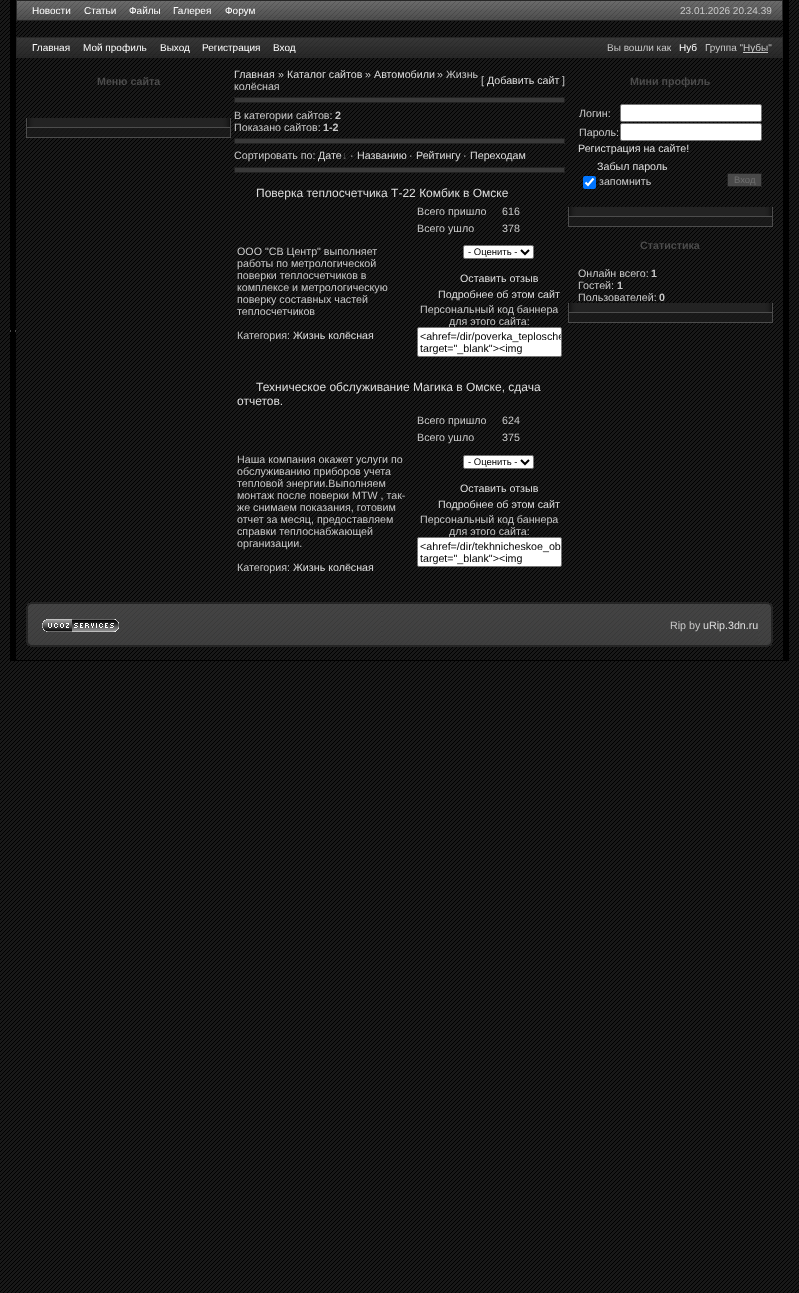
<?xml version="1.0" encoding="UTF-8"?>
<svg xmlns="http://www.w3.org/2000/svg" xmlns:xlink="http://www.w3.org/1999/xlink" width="799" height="1293">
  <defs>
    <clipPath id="clip1"><rect x="418" y="328" width="143" height="28" /></clipPath>
  </defs>
  <rect width="100%" height="100%" fill="#ffffff" />
  <image x="0" y="0" width="799" height="1293" xlink:href="image1.png" />
  <rect x="10" width="6" height="661" fill="#000000" />
  <image x="10" y="330" width="6" height="2" xlink:href="image2.png" />
  <rect x="16" y="660" width="767" height="1" fill="#000000" />
  <image x="17" y="1" width="765" height="19" xlink:href="image3.png" />
  <rect x="16.5" y="0.5" width="766" height="20" fill="none" stroke="#262626" />
  <image x="17" y="38" width="765" height="19" xlink:href="image4.png" />
  <rect x="16.5" y="37.5" width="766" height="20" fill="none" stroke="#262626" />
  <rect x="743" y="52" width="25" height="1" fill="#c8c8c8" />
  <image x="26" y="118" width="205" height="20" xlink:href="image5.png" />
  <rect x="234.5" y="97.5" width="330" height="5" fill="#393939" stroke="#222222" />
  <rect x="234.5" y="138.5" width="330" height="5" fill="#393939" stroke="#222222" />
  <rect x="234.5" y="167.5" width="330" height="5" fill="#393939" stroke="#222222" />
  <rect x="463.5" y="245.5" width="70" height="13" rx="1.5" fill="#ffffff" stroke="#767676" />
  <path d="M 521 250 l 4 4 l 4 -4" fill="none" stroke="#000000" stroke-width="2" />
  <rect x="463.5" y="455.5" width="70" height="13" rx="1.5" fill="#ffffff" stroke="#767676" />
  <path d="M 521 460 l 4 4 l 4 -4" fill="none" stroke="#000000" stroke-width="2" />
  <rect x="620.5" y="104.5" width="141" height="17" rx="1.5" fill="#ffffff" stroke="#767676" />
  <rect x="620.5" y="123.5" width="141" height="17" rx="1.5" fill="#ffffff" stroke="#767676" />
  <rect x="583" y="176" width="13" height="13" rx="2" fill="#0075ff" />
  <path d="M 585.5 182.5 l 2.5 2.5 l 5.5 -6.5" fill="none" stroke="#ffffff" stroke-width="2.1" />
  <rect x="727.5" y="173.5" width="34" height="13" fill="#494949" stroke="#222222" />
  <image x="568" y="207" width="205" height="20" xlink:href="image5.png" />
  <image x="568" y="303" width="205" height="20" xlink:href="image5.png" />
  <image x="26" y="602" width="15" height="45" xlink:href="image6.png" />
  <image x="41" y="602" width="341" height="45" xlink:href="image7.png" />
  <image x="42" y="619" width="77" height="13" xlink:href="image8.png" />
  <image x="382" y="602" width="376" height="45" xlink:href="image9.png" />
  <image x="758" y="602" width="15" height="45" xlink:href="image10.png" />
  <rect x="783" width="6" height="661" fill="#000000" />
  <text x="32" y="14" style="font-family: Liberation Sans; font-size: 10px; fill: #ffffff">Новости</text>
  <text x="84" y="14" style="font-family: Liberation Sans; font-size: 10px; fill: #ffffff">Статьи</text>
  <text x="129" y="14" style="font-family: Liberation Sans; font-size: 10px; fill: #ffffff">Файлы</text>
  <text x="173" y="14" style="font-family: Liberation Sans; font-size: 10px; fill: #ffffff">Галерея</text>
  <text x="225" y="14" style="font-family: Liberation Sans; font-size: 10px; fill: #ffffff">Форум</text>
  <text x="680" y="14" style="font-family: Liberation Sans; font-size: 10px; fill: #c8c8c8">23.01.2026 20.24.39</text>
  <text x="32" y="51" style="font-family: Liberation Sans; font-size: 10px; fill: #ffffff">Главная</text>
  <text x="83" y="51" style="font-family: Liberation Sans; font-size: 10px; fill: #ffffff">Мой профиль</text>
  <text x="160" y="51" style="font-family: Liberation Sans; font-size: 10px; fill: #ffffff">Выход</text>
  <text x="202" y="51" style="font-family: Liberation Sans; font-size: 10px; fill: #ffffff">Регистрация</text>
  <text x="273" y="51" style="font-family: Liberation Sans; font-size: 10px; fill: #ffffff">Вход</text>
  <text x="607" y="51" style="font-family: Liberation Sans; font-size: 10px; fill: #c8c8c8">Вы вошли как</text>
  <text x="679" y="51" style="font-family: Liberation Sans; font-size: 10px; fill: #ffffff">Нуб</text>
  <text x="705" y="51" style="font-family: Liberation Sans; font-size: 10px; fill: #c8c8c8">Группа "</text>
  <text x="743" y="51" style="font-family: Liberation Sans; font-size: 10px; fill: #c8c8c8">Нубы"</text>
  <text x="97" y="85" style="font-family: Liberation Sans; font-size: 10.7px; font-weight: bold; fill: #4c4c4c">Меню сайта</text>
  <text x="234" y="78" style="font-family: Liberation Sans; font-size: 10.7px; fill: #dedede">Главная</text>
  <text x="278" y="78" style="font-family: Liberation Sans; font-size: 10.7px; fill: #c8c8c8">»</text>
  <text x="287" y="78" style="font-family: Liberation Sans; font-size: 10.7px; fill: #dedede">Каталог сайтов</text>
  <text x="365" y="78" style="font-family: Liberation Sans; font-size: 10.7px; fill: #c8c8c8">»</text>
  <text x="374" y="78" style="font-family: Liberation Sans; font-size: 10.7px; fill: #dedede">Автомобили</text>
  <text x="437" y="78" style="font-family: Liberation Sans; font-size: 10.7px; fill: #c8c8c8">» Жизнь</text>
  <text x="234" y="90" style="font-family: Liberation Sans; font-size: 10.7px; fill: #c8c8c8">колёсная</text>
  <text x="481" y="84" style="font-family: Liberation Sans; font-size: 10.7px; fill: #c8c8c8">[</text>
  <text x="487" y="84" style="font-family: Liberation Sans; font-size: 10.7px; fill: #dedede">Добавить сайт</text>
  <text x="562" y="84" style="font-family: Liberation Sans; font-size: 10.7px; fill: #c8c8c8">]</text>
  <text x="234" y="119" style="font-family: Liberation Sans; font-size: 10.7px; fill: #c8c8c8">В категории сайтов:</text>
  <text x="335" y="119" style="font-family: Liberation Sans; font-size: 10.7px; font-weight: bold; fill: #c8c8c8">2</text>
  <text x="234" y="131" style="font-family: Liberation Sans; font-size: 10.7px; fill: #c8c8c8">Показано сайтов:</text>
  <text x="323" y="131" style="font-family: Liberation Sans; font-size: 10.7px; font-weight: bold; fill: #c8c8c8">1-2</text>
  <text x="234" y="159" style="font-family: Liberation Sans; font-size: 10.7px; fill: #c8c8c8">Сортировать по:</text>
  <text x="318" y="159" style="font-family: Liberation Sans; font-size: 10.7px; fill: #dedede">Дате</text>
  <text x="342" y="159" style="font-family: Liberation Sans; font-size: 10.7px; fill: #646464">↓</text>
  <text x="350" y="159" style="font-family: Liberation Sans; font-size: 10.7px; fill: #c8c8c8">·</text>
  <text x="357" y="159" style="font-family: Liberation Sans; font-size: 10.7px; fill: #dedede">Названию</text>
  <text x="409" y="159" style="font-family: Liberation Sans; font-size: 10.7px; fill: #c8c8c8">·</text>
  <text x="416" y="159" style="font-family: Liberation Sans; font-size: 10.7px; fill: #dedede">Рейтингу</text>
  <text x="463" y="159" style="font-family: Liberation Sans; font-size: 10.7px; fill: #c8c8c8">·</text>
  <text x="470" y="159" style="font-family: Liberation Sans; font-size: 10.7px; fill: #dedede">Переходам</text>
  <text x="256" y="197" style="font-family: Liberation Sans; font-size: 12px; fill: #dedede">Поверка теплосчетчика Т-22 Комбик в Омске</text>
  <text x="417" y="215" style="font-family: Liberation Sans; font-size: 10.7px; fill: #c8c8c8">Всего пришло</text>
  <text x="502" y="215" style="font-family: Liberation Sans; font-size: 10.7px; fill: #c8c8c8">616</text>
  <text x="237" y="255" style="font-family: Liberation Sans; font-size: 10.7px; fill: #c8c8c8">ООО "СВ Центр" выполняет</text>
  <text x="237" y="267" style="font-family: Liberation Sans; font-size: 10.7px; fill: #c8c8c8">работы по метрологической</text>
  <text x="237" y="279" style="font-family: Liberation Sans; font-size: 10.7px; fill: #c8c8c8">поверки теплосчетчиков в</text>
  <text x="237" y="291" style="font-family: Liberation Sans; font-size: 10.7px; fill: #c8c8c8">комплексе и метрологическую</text>
  <text x="237" y="303" style="font-family: Liberation Sans; font-size: 10.7px; fill: #c8c8c8">поверку составных частей</text>
  <text x="237" y="315" style="font-family: Liberation Sans; font-size: 10.7px; fill: #c8c8c8">теплосчетчиков</text>
  <text x="237" y="339" style="font-family: Liberation Sans; font-size: 10.7px; fill: #c8c8c8">Категория:</text>
  <text x="293" y="339" style="font-family: Liberation Sans; font-size: 10.7px; fill: #dedede">Жизнь колёсная</text>
  <text x="417" y="232" style="font-family: Liberation Sans; font-size: 10.7px; fill: #c8c8c8">Всего ушло</text>
  <text x="502" y="232" style="font-family: Liberation Sans; font-size: 10.7px; fill: #c8c8c8">378</text>
  <text x="468" y="255" style="font-family: Liberation Sans; font-size: 9.5px; fill: #000000">- Оценить -</text>
  <text x="460" y="282" style="font-family: Liberation Sans; font-size: 10.7px; fill: #dedede">Оставить отзыв</text>
  <text x="438" y="298" style="font-family: Liberation Sans; font-size: 10.7px; fill: #dedede">Подробнее об этом сайт</text>
  <text x="420" y="313" style="font-family: Liberation Sans; font-size: 10.7px; fill: #c8c8c8">Персональный код баннера</text>
  <text x="449" y="325" style="font-family: Liberation Sans; font-size: 10.7px; fill: #c8c8c8">для этого сайта:</text>
  <rect x="417.5" y="327.5" width="144" height="29" rx="1.5" fill="#ffffff" stroke="#767676" />
  <text x="420" y="340" style="font-family: Liberation Sans; font-size: 10.7px; fill: #000000">&lt;a</text>
  <g clip-path="url(#clip1)">
    <text x="432" y="340" style="font-family: Liberation Sans; font-size: 10.7px; fill: #000000">href=/dir/poverka_teplosche</text>
  </g>
  <text x="420" y="352" style="font-family: Liberation Sans; font-size: 10.7px; fill: #000000">target="_blank"&gt;&lt;img</text>
  <text x="256" y="391" style="font-family: Liberation Sans; font-size: 12px; fill: #dedede">Техническое обслуживание Магика в Омске, сдача</text>
  <text x="237" y="405" style="font-family: Liberation Sans; font-size: 12px; fill: #dedede">отчетов.</text>
  <text x="417" y="424" style="font-family: Liberation Sans; font-size: 10.7px; fill: #c8c8c8">Всего пришло</text>
  <text x="502" y="424" style="font-family: Liberation Sans; font-size: 10.7px; fill: #c8c8c8">624</text>
  <text x="237" y="463" style="font-family: Liberation Sans; font-size: 10.7px; fill: #c8c8c8">Наша компания окажет услуги по</text>
  <text x="237" y="475" style="font-family: Liberation Sans; font-size: 10.7px; fill: #c8c8c8">обслуживанию приборов учета</text>
  <text x="237" y="487" style="font-family: Liberation Sans; font-size: 10.7px; fill: #c8c8c8">тепловой энергии.Выполняем</text>
  <text x="237" y="499" style="font-family: Liberation Sans; font-size: 10.7px; fill: #c8c8c8">монтаж после поверки MTW , так-</text>
  <text x="237" y="511" style="font-family: Liberation Sans; font-size: 10.7px; fill: #c8c8c8">же снимаем показания, готовим</text>
  <text x="237" y="523" style="font-family: Liberation Sans; font-size: 10.7px; fill: #c8c8c8">отчет за месяц, предоставляем</text>
  <text x="237" y="535" style="font-family: Liberation Sans; font-size: 10.7px; fill: #c8c8c8">справки теплоснабжающей</text>
  <text x="237" y="547" style="font-family: Liberation Sans; font-size: 10.7px; fill: #c8c8c8">организации.</text>
  <text x="237" y="571" style="font-family: Liberation Sans; font-size: 10.7px; fill: #c8c8c8">Категория:</text>
  <text x="293" y="571" style="font-family: Liberation Sans; font-size: 10.7px; fill: #dedede">Жизнь колёсная</text>
  <text x="417" y="441" style="font-family: Liberation Sans; font-size: 10.7px; fill: #c8c8c8">Всего ушло</text>
  <text x="502" y="441" style="font-family: Liberation Sans; font-size: 10.7px; fill: #c8c8c8">375</text>
  <text x="468" y="465" style="font-family: Liberation Sans; font-size: 9.5px; fill: #000000">- Оценить -</text>
  <text x="460" y="492" style="font-family: Liberation Sans; font-size: 10.7px; fill: #dedede">Оставить отзыв</text>
  <text x="438" y="508" style="font-family: Liberation Sans; font-size: 10.7px; fill: #dedede">Подробнее об этом сайт</text>
  <text x="420" y="523" style="font-family: Liberation Sans; font-size: 10.7px; fill: #c8c8c8">Персональный код баннера</text>
  <text x="449" y="535" style="font-family: Liberation Sans; font-size: 10.7px; fill: #c8c8c8">для этого сайта:</text>
  <rect x="417.5" y="537.5" width="144" height="29" rx="1.5" fill="#ffffff" stroke="#767676" />
  <text x="420" y="550" style="font-family: Liberation Sans; font-size: 10.7px; fill: #000000">&lt;ahref=/dir/tekhnicheskoe_ob</text>
  <text x="420" y="562" style="font-family: Liberation Sans; font-size: 10.7px; fill: #000000">target="_blank"&gt;&lt;img</text>
  <text x="630" y="85" style="font-family: Liberation Sans; font-size: 10.7px; font-weight: bold; fill: #4c4c4c">Мини профиль</text>
  <text x="579" y="117" style="font-family: Liberation Sans; font-size: 10.7px; fill: #c8c8c8">Логин:</text>
  <text x="579" y="136" style="font-family: Liberation Sans; font-size: 10.7px; fill: #c8c8c8">Пароль:</text>
  <text x="578" y="152" style="font-family: Liberation Sans; font-size: 10.7px; fill: #dedede">Регистрация на сайте!</text>
  <text x="597" y="170" style="font-family: Liberation Sans; font-size: 10.7px; fill: #dedede">Забыл пароль</text>
  <text x="599" y="185" style="font-family: Liberation Sans; font-size: 10.7px; fill: #c8c8c8">запомнить</text>
  <text x="734" y="183" style="font-family: Liberation Sans; font-size: 9.5px; fill: #707070">Вход</text>
  <text x="640" y="249" style="font-family: Liberation Sans; font-size: 10.7px; font-weight: bold; fill: #4c4c4c">Статистика</text>
  <text x="578" y="277" style="font-family: Liberation Sans; font-size: 10.7px; fill: #c8c8c8">Онлайн всего:</text>
  <text x="651" y="277" style="font-family: Liberation Sans; font-size: 10.7px; font-weight: bold; fill: #c8c8c8">1</text>
  <text x="578" y="289" style="font-family: Liberation Sans; font-size: 10.7px; fill: #c8c8c8">Гостей:</text>
  <text x="617" y="289" style="font-family: Liberation Sans; font-size: 10.7px; font-weight: bold; fill: #c8c8c8">1</text>
  <text x="578" y="301" style="font-family: Liberation Sans; font-size: 10.7px; fill: #c8c8c8">Пользователей:</text>
  <text x="659" y="301" style="font-family: Liberation Sans; font-size: 10.7px; font-weight: bold; fill: #c8c8c8">0</text>
  <text x="670" y="629" style="font-family: Liberation Sans; font-size: 10.7px; fill: #c8c8c8">Rip by</text>
  <text x="703" y="629" style="font-family: Liberation Sans; font-size: 10.7px; fill: #dedede">uRip.3dn.ru</text>
</svg>
